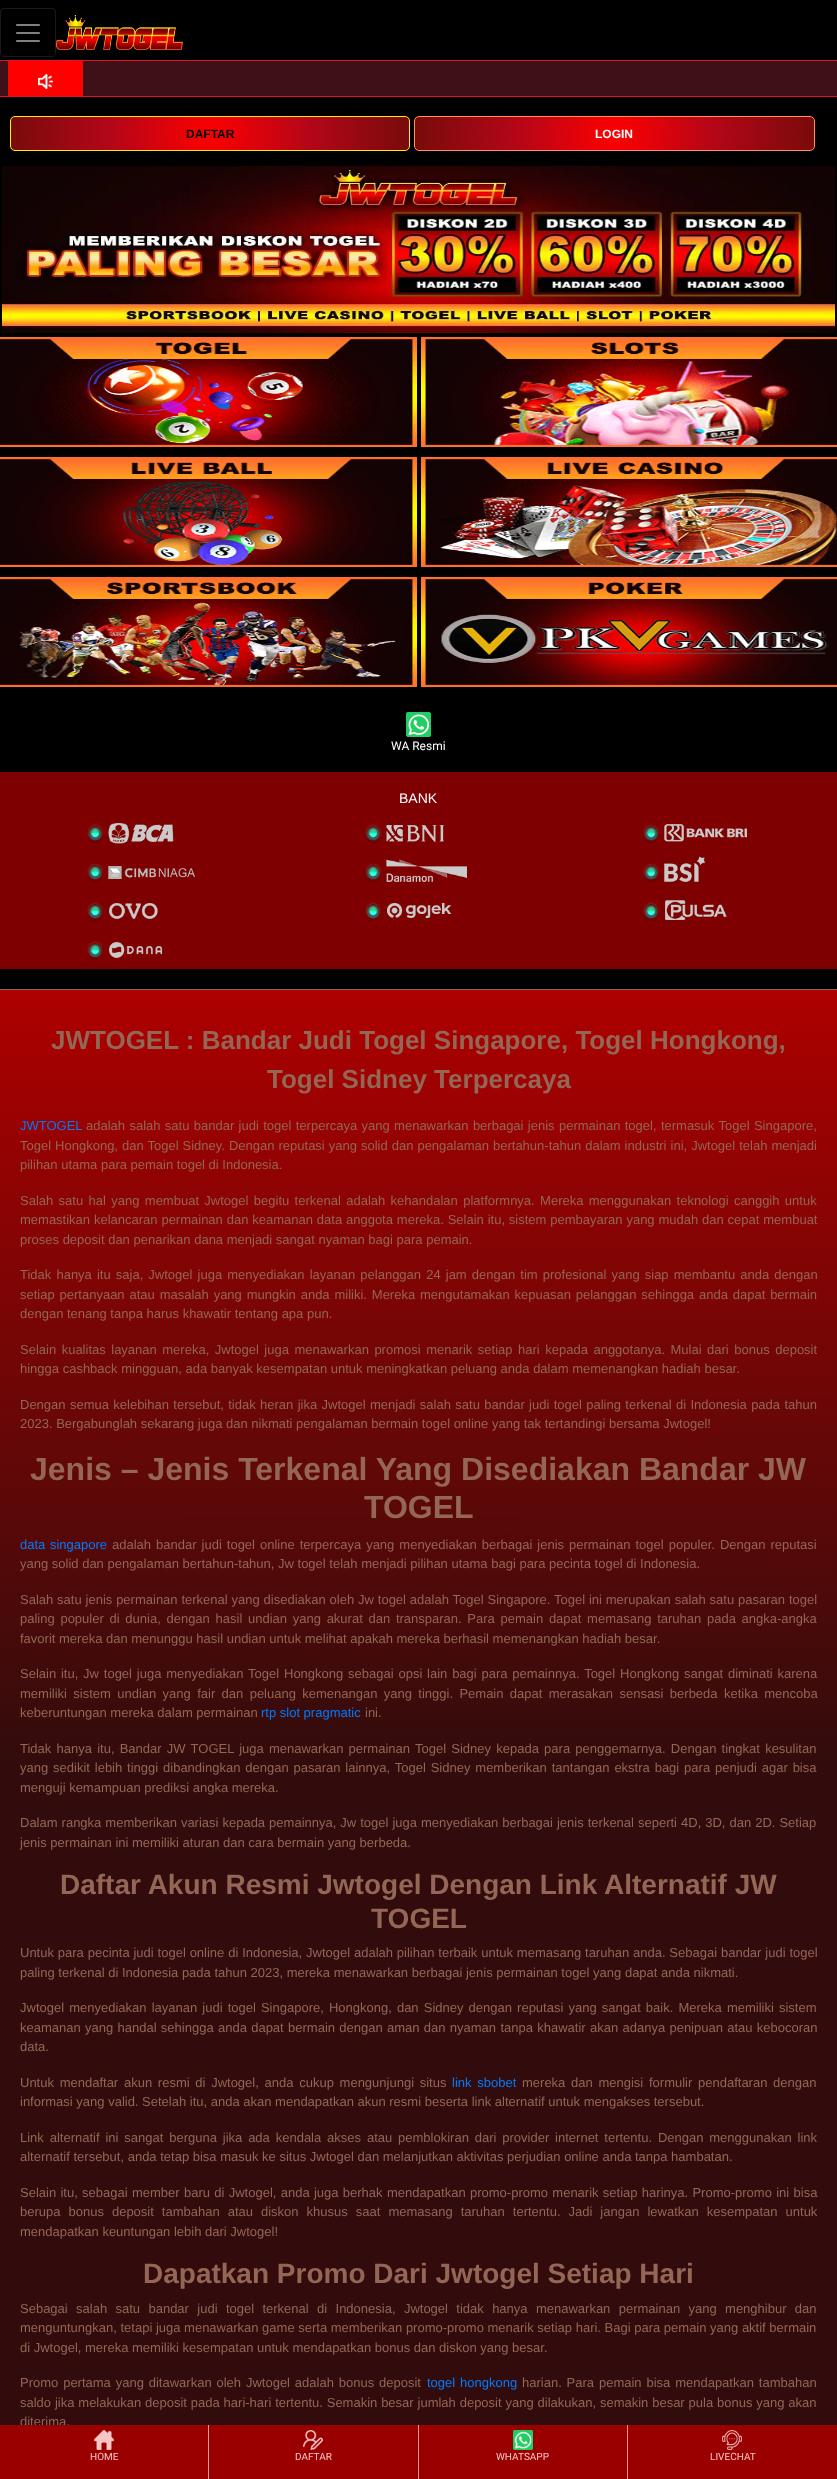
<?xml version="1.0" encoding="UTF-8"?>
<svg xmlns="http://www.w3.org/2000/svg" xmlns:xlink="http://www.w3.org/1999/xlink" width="837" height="2479">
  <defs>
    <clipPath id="clip1"><rect x="10" y="116" width="400" height="35" rx="5" /></clipPath>
    <radialGradient id="g1" gradientUnits="userSpaceOnUse" cx="210" cy="134" r="200"><stop offset="0" stop-color="#fe0000" /><stop offset="0.49" stop-color="#b50618" /><stop offset="1" stop-color="#780b0b" /></radialGradient>
    <clipPath id="clip2"><rect x="414" y="116" width="401" height="35" rx="5" /></clipPath>
    <radialGradient id="g2" gradientUnits="userSpaceOnUse" cx="615" cy="134" r="200"><stop offset="0" stop-color="#fe0000" /><stop offset="0.49" stop-color="#b50618" /><stop offset="1" stop-color="#780b0b" /></radialGradient>
    <linearGradient id="g3" gradientUnits="userSpaceOnUse" x1="418" y1="990" x2="419" y2="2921"><stop offset="0" stop-color="#ae0000" /><stop offset="0.4" stop-color="#320c0c" /></linearGradient>
  </defs>
  <rect width="100%" height="100%" fill="#000000" />
  <rect x="0.5" y="8.5" width="55" height="48" rx="3.5" fill="none" stroke="#1a1a1a" />
  <image x="16" y="24" width="24" height="18" xlink:href="image1.png" />
  <image x="56" y="15" width="127" height="35" xlink:href="image2.png" />
  <rect y="60" width="837" height="1" fill="#e21325" />
  <rect y="96" width="837" height="1" fill="#e21325" />
  <rect y="61" width="837" height="35" fill="#3e1018" />
  <rect x="8" y="61" width="75" height="35" fill="#ff0000" />
  <image x="38" y="74" width="15" height="15" xlink:href="image3.png" />
  <g clip-path="url(#clip1)">
    <rect x="11" y="117" width="398" height="33" fill="url(#g1)" />
  </g>
  <rect x="10.5" y="116.5" width="399" height="34" rx="4.5" fill="none" stroke="#ffed00" />
  <g clip-path="url(#clip2)">
    <rect x="415" y="117" width="399" height="33" fill="url(#g2)" />
  </g>
  <rect x="414.5" y="116.5" width="400" height="34" rx="4.5" fill="none" stroke="#ff925c" />
  <image x="2" y="166" width="833" height="167" xlink:href="image4.png" />
  <image x="0" y="337" width="417" height="110" xlink:href="image5.png" />
  <image x="421" y="337" width="416" height="110" xlink:href="image6.png" />
  <image x="0" y="457" width="417" height="110" xlink:href="image7.png" />
  <image x="421" y="457" width="416" height="110" xlink:href="image8.png" />
  <image x="0" y="577" width="417" height="110" xlink:href="image9.png" />
  <image x="421" y="577" width="416" height="110" xlink:href="image10.png" />
  <image x="406" y="712" width="25" height="25" xlink:href="image11.png" />
  <rect y="772" width="837" height="197" fill="#7f0000" />
  <image x="87" y="823" width="87" height="21" xlink:href="image12.png" />
  <image x="365" y="824" width="79" height="20" xlink:href="image13.png" />
  <image x="643" y="824" width="104" height="20" xlink:href="image14.png" />
  <image x="87" y="863" width="108" height="20" xlink:href="image15.png" />
  <image x="365" y="859" width="102" height="24" xlink:href="image16.png" />
  <image x="643" y="856" width="62" height="27" xlink:href="image17.png" />
  <image x="87" y="902" width="71" height="20" xlink:href="image18.png" />
  <image x="365" y="902" width="87" height="20" xlink:href="image19.png" />
  <image x="643" y="900" width="84" height="22" xlink:href="image20.png" />
  <image x="87" y="941" width="76" height="20" xlink:href="image21.png" />
  <rect y="990" width="837" height="1435" fill="url(#g3)" />
  <rect y="989" width="837" height="1" fill="#936655" />
  <text x="186" y="138" style="font-family: Liberation Sans; font-size: 12px; font-weight: bold; fill: #000000">DAFTAR</text>
  <text x="595" y="138" style="font-family: Liberation Sans; font-size: 12px; font-weight: bold; fill: #ffffff">LOGIN</text>
  <text x="391" y="750" style="font-family: Roboto; font-size: 12px; fill: #ffffff">WA Resmi</text>
  <text x="399" y="803" style="font-family: Liberation Sans; font-size: 14px; fill: #ffffff">BANK</text>
  <text x="51" y="1049" style="font-family: Liberation Sans; font-size: 26px; font-weight: bold; fill: #936655">JWTOGEL : Bandar Judi Togel Singapore, Togel Hongkong,</text>
  <text x="267" y="1088" style="font-family: Liberation Sans; font-size: 26px; font-weight: bold; fill: #936655">Togel Sidney Terpercaya</text>
  <text x="20" y="1130" style="font-family: Liberation Sans; font-size: 13px; fill: #007bff">JWTOGEL</text>
  <text x="86" y="1130" word-spacing="0.75" style="font-family: Liberation Sans; font-size: 13px; fill: #936655">adalah salah satu bandar judi togel terpercaya yang menawarkan berbagai jenis permainan togel, termasuk Togel Singapore,</text>
  <text x="20" y="1150" word-spacing="0.4" style="font-family: Liberation Sans; font-size: 13px; fill: #936655">Togel Hongkong, dan Togel Sidney. Dengan reputasi yang solid dan pengalaman bertahun-tahun dalam industri ini, Jwtogel telah menjadi</text>
  <text x="20" y="1169" style="font-family: Liberation Sans; font-size: 13px; fill: #936655">pilihan utama para pemain togel di Indonesia.</text>
  <text x="20" y="1205" word-spacing="1.75" style="font-family: Liberation Sans; font-size: 13px; fill: #936655">Salah satu hal yang membuat Jwtogel begitu terkenal adalah kehandalan platformnya. Mereka menggunakan teknologi canggih untuk</text>
  <text x="20" y="1224" word-spacing="0.25" style="font-family: Liberation Sans; font-size: 13px; fill: #936655">memastikan kelancaran permainan dan keamanan data anggota mereka. Selain itu, sistem pembayaran yang mudah dan cepat membuat</text>
  <text x="20" y="1244" style="font-family: Liberation Sans; font-size: 13px; fill: #936655">proses deposit dan penarikan dana menjadi sangat nyaman bagi para pemain.</text>
  <text x="20" y="1279" word-spacing="1.5" style="font-family: Liberation Sans; font-size: 13px; fill: #936655">Tidak hanya itu saja, Jwtogel juga menyediakan layanan pelanggan 24 jam dengan tim profesional yang siap membantu anda dengan</text>
  <text x="20" y="1299" word-spacing="1.25" style="font-family: Liberation Sans; font-size: 13px; fill: #936655">setiap pertanyaan atau masalah yang mungkin anda miliki. Mereka mengutamakan kepuasan pelanggan sehingga anda dapat bermain</text>
  <text x="20" y="1318" style="font-family: Liberation Sans; font-size: 13px; fill: #936655">dengan tenang tanpa harus khawatir tentang apa pun.</text>
  <text x="20" y="1354" word-spacing="1.9" style="font-family: Liberation Sans; font-size: 13px; fill: #936655">Selain kualitas layanan mereka, Jwtogel juga menawarkan promosi menarik setiap hari kepada anggotanya. Mulai dari bonus deposit</text>
  <text x="20" y="1373" style="font-family: Liberation Sans; font-size: 13px; fill: #936655">hingga cashback mingguan, ada banyak kesempatan untuk meningkatkan peluang anda dalam memenangkan hadiah besar.</text>
  <text x="20" y="1409" word-spacing="0.75" style="font-family: Liberation Sans; font-size: 13px; fill: #936655">Dengan semua kelebihan tersebut, tidak heran jika Jwtogel menjadi salah satu bandar judi togel paling terkenal di Indonesia pada tahun</text>
  <text x="20" y="1428" style="font-family: Liberation Sans; font-size: 13px; fill: #936655">2023. Bergabunglah sekarang juga dan nikmati pengalaman bermain togel online yang tak tertandingi bersama Jwtogel!</text>
  <text x="30" y="1480" style="font-family: Liberation Sans; font-size: 32px; font-weight: bold; fill: #936655">Jenis – Jenis Terkenal Yang Disediakan Bandar JW</text>
  <text x="364" y="1518" style="font-family: Liberation Sans; font-size: 32px; font-weight: bold; fill: #936655">TOGEL</text>
  <text x="20" y="1549" word-spacing="1" style="font-family: Liberation Sans; font-size: 13px; fill: #007bff">data singapore</text>
  <text x="112" y="1549" word-spacing="1.4" style="font-family: Liberation Sans; font-size: 13px; fill: #936655">adalah bandar judi togel online terpercaya yang menyediakan berbagai jenis permainan togel populer. Dengan reputasi</text>
  <text x="20" y="1568" style="font-family: Liberation Sans; font-size: 13px; fill: #936655">yang solid dan pengalaman bertahun-tahun, Jw togel telah menjadi pilihan utama bagi para pecinta togel di Indonesia.</text>
  <text x="20" y="1604" word-spacing="0.25" style="font-family: Liberation Sans; font-size: 13px; fill: #936655">Salah satu jenis permainan terkenal yang disediakan oleh Jw togel adalah Togel Singapore. Togel ini merupakan salah satu pasaran togel</text>
  <text x="20" y="1623" word-spacing="2.1" style="font-family: Liberation Sans; font-size: 13px; fill: #936655">paling populer di dunia, dengan hasil undian yang akurat dan transparan. Para pemain dapat memasang taruhan pada angka-angka</text>
  <text x="20" y="1643" style="font-family: Liberation Sans; font-size: 13px; fill: #936655">favorit mereka dan menunggu hasil undian untuk melihat apakah mereka berhasil memenangkan hadiah besar.</text>
  <text x="20" y="1678" word-spacing="1.2" style="font-family: Liberation Sans; font-size: 13px; fill: #936655">Selain itu, Jw togel juga menyediakan Togel Hongkong sebagai opsi lain bagi para pemainnya. Togel Hongkong sangat diminati karena</text>
  <text x="20" y="1698" word-spacing="2.75" style="font-family: Liberation Sans; font-size: 13px; fill: #936655">memiliki sistem undian yang fair dan peluang kemenangan yang tinggi. Pemain dapat merasakan sensasi berbeda ketika mencoba</text>
  <text x="20" y="1717" style="font-family: Liberation Sans; font-size: 13px; fill: #936655">keberuntungan mereka dalam permainan</text>
  <text x="261" y="1717" style="font-family: Liberation Sans; font-size: 13px; fill: #007bff">rtp slot pragmatic</text>
  <text x="365" y="1717" style="font-family: Liberation Sans; font-size: 13px; fill: #936655">ini.</text>
  <text x="20" y="1753" word-spacing="1.6" style="font-family: Liberation Sans; font-size: 13px; fill: #936655">Tidak hanya itu, Bandar JW TOGEL juga menawarkan permainan Togel Sidney kepada para penggemarnya. Dengan tingkat kesulitan</text>
  <text x="20" y="1772" word-spacing="1.25" style="font-family: Liberation Sans; font-size: 13px; fill: #936655">yang sedikit lebih tinggi dibandingkan dengan pasaran lainnya, Togel Sidney memberikan tantangan ekstra bagi para penjudi agar bisa</text>
  <text x="20" y="1792" style="font-family: Liberation Sans; font-size: 13px; fill: #936655">menguji kemampuan prediksi angka mereka.</text>
  <text x="20" y="1827" word-spacing="0.4" style="font-family: Liberation Sans; font-size: 13px; fill: #936655">Dalam rangka memberikan variasi kepada pemainnya, Jw togel juga menyediakan berbagai jenis terkenal seperti 4D, 3D, dan 2D. Setiap</text>
  <text x="20" y="1847" style="font-family: Liberation Sans; font-size: 13px; fill: #936655">jenis permainan ini memiliki aturan dan cara bermain yang berbeda.</text>
  <text x="60" y="1894" style="font-family: Liberation Sans; font-size: 28px; font-weight: bold; fill: #936655">Daftar Akun Resmi Jwtogel Dengan Link Alternatif JW</text>
  <text x="371" y="1928" style="font-family: Liberation Sans; font-size: 28px; font-weight: bold; fill: #936655">TOGEL</text>
  <text x="20" y="1957" word-spacing="0.25" style="font-family: Liberation Sans; font-size: 13px; fill: #936655">Untuk para pecinta judi togel online di Indonesia, Jwtogel adalah pilihan terbaik untuk memasang taruhan anda. Sebagai bandar judi togel</text>
  <text x="20" y="1977" style="font-family: Liberation Sans; font-size: 13px; fill: #936655">paling terkenal di Indonesia pada tahun 2023, mereka menawarkan berbagai jenis permainan togel yang dapat anda nikmati.</text>
  <text x="20" y="2012" word-spacing="1.5" style="font-family: Liberation Sans; font-size: 13px; fill: #936655">Jwtogel menyediakan layanan judi togel Singapore, Hongkong, dan Sidney dengan reputasi yang sangat baik. Mereka memiliki sistem</text>
  <text x="20" y="2032" word-spacing="0.7" style="font-family: Liberation Sans; font-size: 13px; fill: #936655">keamanan yang handal sehingga anda dapat bermain dengan aman dan nyaman tanpa khawatir akan adanya penipuan atau kebocoran</text>
  <text x="20" y="2051" style="font-family: Liberation Sans; font-size: 13px; fill: #936655">data.</text>
  <text x="20" y="2087" word-spacing="2.1" style="font-family: Liberation Sans; font-size: 13px; fill: #936655">Untuk mendaftar akun resmi di Jwtogel, anda cukup mengunjungi situs</text>
  <text x="452" y="2087" word-spacing="2.1" style="font-family: Liberation Sans; font-size: 13px; fill: #007bff">link sbobet</text>
  <text x="522" y="2087" word-spacing="2.1" style="font-family: Liberation Sans; font-size: 13px; fill: #936655">mereka dan mengisi formulir pendaftaran dengan</text>
  <text x="20" y="2106" style="font-family: Liberation Sans; font-size: 13px; fill: #936655">informasi yang valid. Setelah itu, anda akan mendapatkan akun resmi beserta link alternatif untuk mengakses tersebut.</text>
  <text x="20" y="2142" word-spacing="2.25" style="font-family: Liberation Sans; font-size: 13px; fill: #936655">Link alternatif ini sangat berguna jika ada kendala akses atau pemblokiran dari provider internet tertentu. Dengan menggunakan link</text>
  <text x="20" y="2161" style="font-family: Liberation Sans; font-size: 13px; fill: #936655">alternatif tersebut, anda tetap bisa masuk ke situs Jwtogel dan melanjutkan aktivitas perjudian online anda tanpa hambatan.</text>
  <text x="20" y="2197" word-spacing="0.7" style="font-family: Liberation Sans; font-size: 13px; fill: #936655">Selain itu, sebagai member baru di Jwtogel, anda juga berhak mendapatkan promo-promo menarik setiap harinya. Promo-promo ini bisa</text>
  <text x="20" y="2216" word-spacing="4.4" style="font-family: Liberation Sans; font-size: 13px; fill: #936655">berupa bonus deposit tambahan atau diskon khusus saat memasang taruhan tertentu. Jadi jangan lewatkan kesempatan untuk</text>
  <text x="20" y="2236" style="font-family: Liberation Sans; font-size: 13px; fill: #936655">mendapatkan keuntungan lebih dari Jwtogel!</text>
  <text x="143" y="2283" style="font-family: Liberation Sans; font-size: 28px; font-weight: bold; fill: #936655">Dapatkan Promo Dari Jwtogel Setiap Hari</text>
  <text x="20" y="2313" word-spacing="4.75" style="font-family: Liberation Sans; font-size: 13px; fill: #936655">Sebagai salah satu bandar judi togel terkenal di Indonesia, Jwtogel tidak hanya menawarkan permainan yang menghibur dan</text>
  <text x="20" y="2332" style="font-family: Liberation Sans; font-size: 13px; fill: #936655">menguntungkan, tetapi juga menawarkan game serta memberikan promo-promo menarik setiap hari. Bagi para pemain yang aktif bermain</text>
  <text x="20" y="2352" style="font-family: Liberation Sans; font-size: 13px; fill: #936655">di Jwtogel, mereka memiliki kesempatan untuk mendapatkan bonus dan diskon yang besar.</text>
  <text x="20" y="2387" word-spacing="1.25" style="font-family: Liberation Sans; font-size: 13px; fill: #936655">Promo pertama yang ditawarkan oleh Jwtogel adalah bonus deposit</text>
  <text x="427" y="2387" word-spacing="1.25" style="font-family: Liberation Sans; font-size: 13px; fill: #007bff">togel hongkong</text>
  <text x="522" y="2387" word-spacing="1.25" style="font-family: Liberation Sans; font-size: 13px; fill: #936655">harian. Para pemain bisa mendapatkan tambahan</text>
  <text x="20" y="2407" word-spacing="0.25" style="font-family: Liberation Sans; font-size: 13px; fill: #936655">saldo jika melakukan deposit pada hari-hari tertentu. Semakin besar jumlah deposit yang dilakukan, semakin besar pula bonus yang akan</text>
  <text x="20" y="2426" style="font-family: Liberation Sans; font-size: 13px; fill: #936655">diterima.</text>
  <rect y="2425" width="837" height="54" fill="#9a0000" />
  <rect x="208" y="2425" width="1" height="54" fill="#f59696" />
  <image x="94" y="2430" width="20" height="20" xlink:href="image22.png" />
  <text x="90" y="2460" style="font-family: Roboto; font-size: 10px; fill: #fbc5c5">HOME</text>
  <rect x="418" y="2425" width="1" height="54" fill="#f59696" />
  <image x="303" y="2430" width="20" height="20" xlink:href="image23.png" />
  <text x="295" y="2460" style="font-family: Roboto; font-size: 10px; fill: #fbc5c5">DAFTAR</text>
  <rect x="627" y="2425" width="1" height="54" fill="#f59696" />
  <image x="513" y="2430" width="20" height="20" xlink:href="image24.png" />
  <text x="496" y="2460" style="font-family: Roboto; font-size: 10px; fill: #fbc5c5">WHATSAPP</text>
  <image x="722" y="2430" width="20" height="20" xlink:href="image25.png" />
  <text x="710" y="2460" style="font-family: Roboto; font-size: 10px; fill: #fbc5c5">LIVECHAT</text>
</svg>
